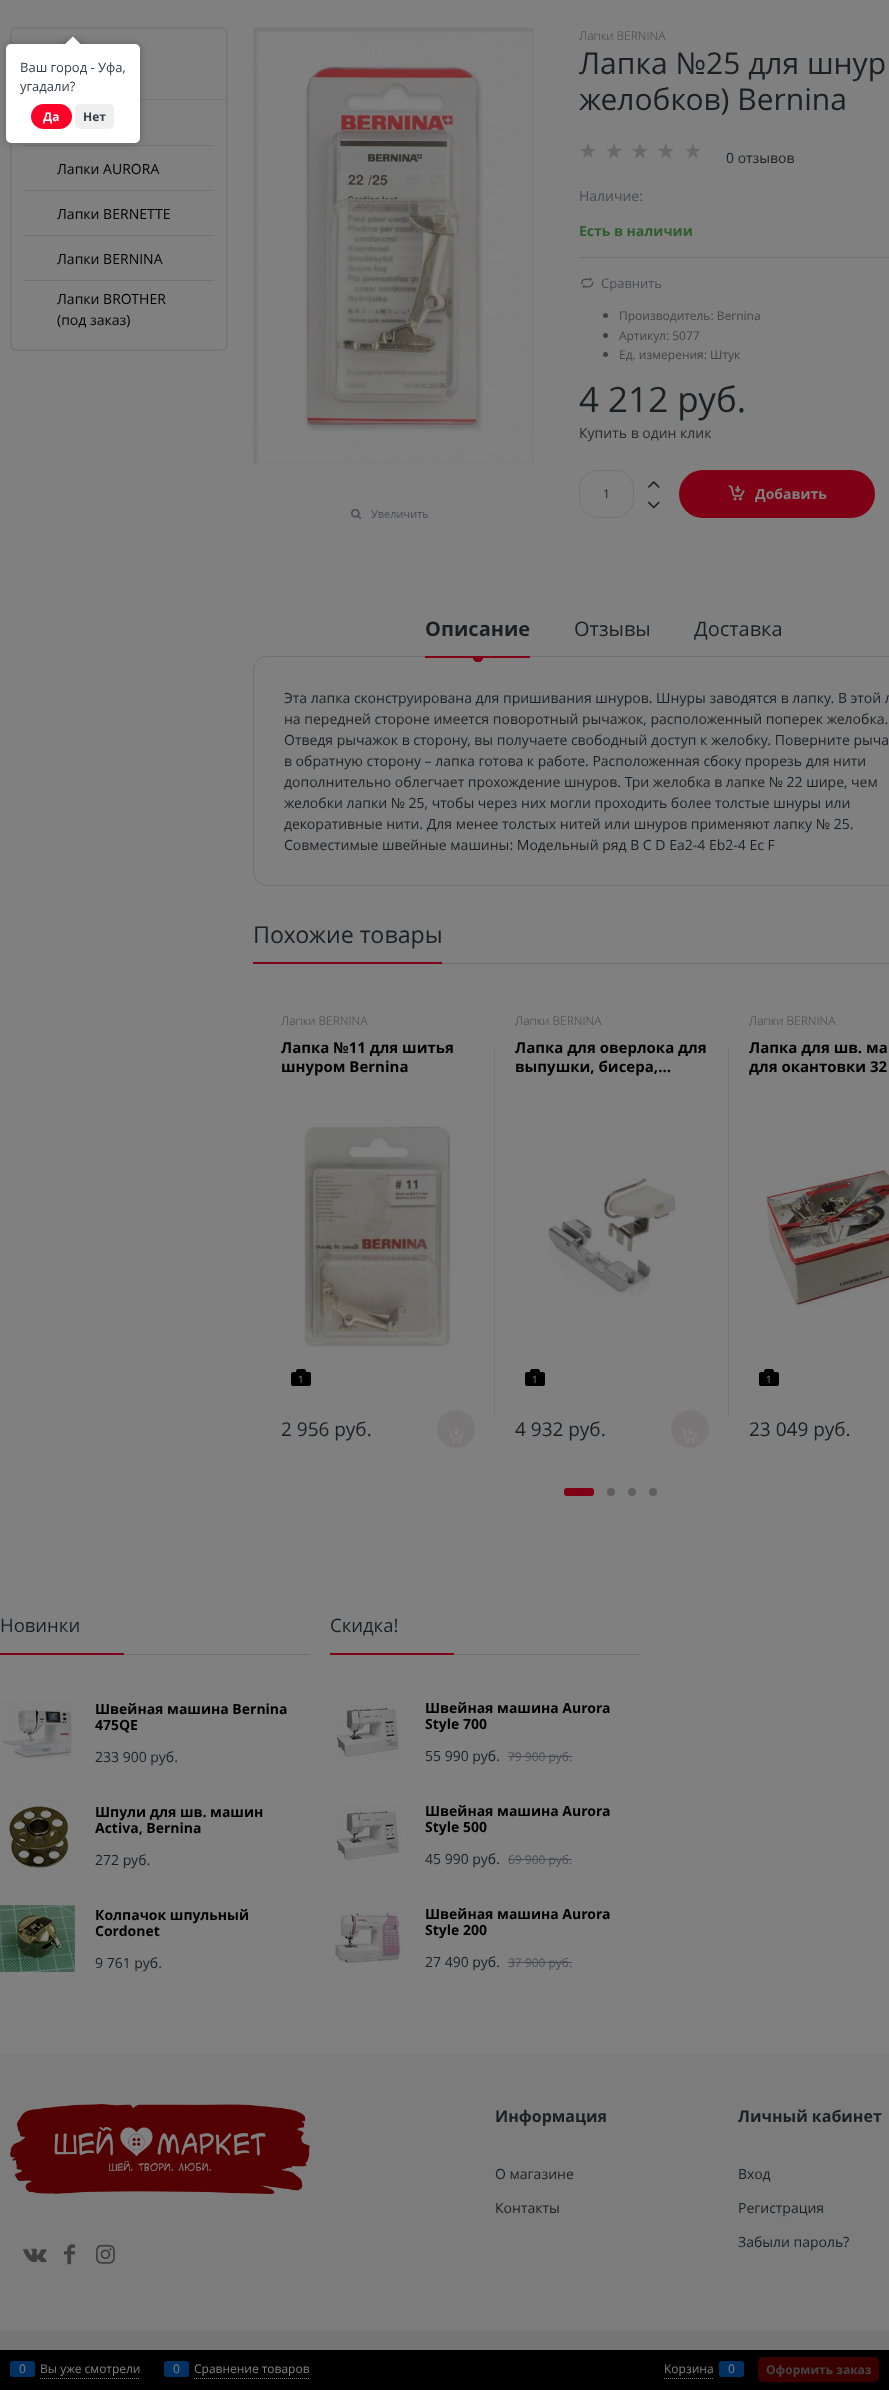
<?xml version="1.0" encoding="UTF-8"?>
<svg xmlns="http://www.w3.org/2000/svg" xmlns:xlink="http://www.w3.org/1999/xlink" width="889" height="2390">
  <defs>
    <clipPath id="clip1"><rect x="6" y="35" width="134" height="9" /></clipPath>
    <clipPath id="clip2"><rect x="6" y="35" width="134" height="9" /></clipPath>
    <clipPath id="clip3"><rect x="425" y="1700" width="215" height="32" /></clipPath>
    <clipPath id="clip4"><rect x="425" y="1803" width="215" height="32" /></clipPath>
    <clipPath id="clip5"><rect x="425" y="1906" width="215" height="32" /></clipPath>
  </defs>
  <rect width="100%" height="100%" fill="#808080" />
  <rect x="11" y="28" width="216" height="322" rx="5" fill="none" stroke="#767676" stroke-width="2" />
  <rect x="140" y="99" width="86" height="1" fill="#767676" />
  <rect x="24" y="145" width="190" height="1" fill="#717272" />
  <rect x="24" y="190" width="190" height="1" fill="#717272" />
  <rect x="24" y="235" width="190" height="1" fill="#717272" />
  <rect x="24" y="280" width="190" height="1" fill="#717272" />
  <image x="580" y="143" width="16" height="16" xlink:href="image1.png" />
  <image x="606" y="143" width="16" height="16" xlink:href="image1.png" />
  <image x="632" y="143" width="16" height="16" xlink:href="image1.png" />
  <image x="658" y="143" width="16" height="16" xlink:href="image1.png" />
  <image x="685" y="143" width="16" height="16" xlink:href="image1.png" />
  <rect x="579" y="257" width="310" height="1" fill="#737373" />
  <image x="581" y="277" width="13" height="12" xlink:href="image2.png" />
  <circle cx="605.5" cy="315.5" r="2.5" fill="#3f3f3f" />
  <circle cx="605.5" cy="335.5" r="2.5" fill="#3f3f3f" />
  <circle cx="605.5" cy="354.5" r="2.5" fill="#3f3f3f" />
  <rect x="579.5" y="470.5" width="54" height="47" rx="18.5" fill="none" stroke="#717272" />
  <image x="648" y="481" width="12" height="7" xlink:href="image3.png" />
  <image x="647" y="501" width="13" height="8" xlink:href="image4.png" />
  <rect x="679" y="470" width="196" height="48" rx="24" fill="#7f0115" />
  <image x="728" y="485" width="17" height="16" xlink:href="image5.png" />
  <image x="253" y="27" width="281" height="437" xlink:href="image6.png" />
  <image x="351" y="508" width="11" height="12" xlink:href="image7.png" />
  <rect x="253.5" y="656.5" width="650" height="229" rx="13.5" fill="none" stroke="#6f6f6f" />
  <rect x="425" y="656" width="105" height="2" fill="#7f0115" />
  <path d="M 473 658 h 10 c 0 2 -2 4 -4 4 h -2 c -2 0 -4 -2 -4 -4 z" fill="#7f0115" />
  <rect x="442" y="963" width="447" height="1" fill="#6d6d6d" />
  <rect x="253" y="962" width="189" height="2" fill="#7f0115" />
  <rect x="494" y="1046" width="1" height="370" fill="#757575" />
  <image x="304" y="1126" width="147" height="221" xlink:href="image8.png" />
  <rect x="291" y="1372" width="20" height="14" rx="2" fill="#000000" />
  <path d="M 298 1369 h 6 c 1 0 2 1 2 2 v 1 h -10 v -1 c 0 -1 1 -2 2 -2 z" fill="#000000" />
  <circle cx="456" cy="1429" r="19" fill="#787676" />
  <image x="446" y="1427" width="18" height="17" xlink:href="image9.png" />
  <rect x="728" y="1046" width="1" height="370" fill="#757575" />
  <image x="548" y="1177" width="128" height="119" xlink:href="image10.png" />
  <rect x="525" y="1372" width="20" height="14" rx="2" fill="#000000" />
  <path d="M 532 1369 h 6 c 1 0 2 1 2 2 v 1 h -10 v -1 c 0 -1 1 -2 2 -2 z" fill="#000000" />
  <circle cx="690" cy="1429" r="19" fill="#787676" />
  <image x="680" y="1427" width="18" height="17" xlink:href="image9.png" />
  <image x="766" y="1169" width="123" height="137" xlink:href="image11.png" />
  <rect x="759" y="1372" width="20" height="14" rx="2" fill="#000000" />
  <path d="M 766 1369 h 6 c 1 0 2 1 2 2 v 1 h -10 v -1 c 0 -1 1 -2 2 -2 z" fill="#000000" />
  <rect x="564" y="1488" width="30" height="8" rx="3" fill="#7f0115" />
  <circle cx="611" cy="1492" r="4" fill="#5e5e5e" />
  <circle cx="632" cy="1492" r="4" fill="#5e5e5e" />
  <circle cx="653" cy="1492" r="4" fill="#5e5e5e" />
  <rect x="124" y="1654" width="186" height="1" fill="#6d6d6d" />
  <rect y="1653" width="124" height="2" fill="#7f0115" />
  <image x="1" y="1702" width="71" height="57" xlink:href="image12.png" />
  <image x="2" y="1799" width="73" height="74" xlink:href="image13.png" />
  <image x="0" y="1905" width="75" height="67" xlink:href="image14.png" />
  <rect x="454" y="1654" width="186" height="1" fill="#6d6d6d" />
  <rect x="330" y="1653" width="124" height="2" fill="#7f0115" />
  <image x="330" y="1703" width="72" height="56" xlink:href="image15.png" />
  <rect x="508" y="1756" width="64" height="1" fill="#4a4b4e" />
  <image x="330" y="1806" width="72" height="56" xlink:href="image16.png" />
  <rect x="508" y="1859" width="64" height="1" fill="#4a4b4e" />
  <image x="331" y="1908" width="73" height="56" xlink:href="image17.png" />
  <rect x="508" y="1962" width="64" height="1" fill="#4a4b4e" />
  <rect y="2054" width="889" height="277" fill="#7c7c7c" />
  <image x="10" y="2104" width="300" height="90" xlink:href="image18.png" />
  <image x="23" y="2248" width="24" height="15" xlink:href="image19.png" />
  <image x="64" y="2244" width="11" height="21" xlink:href="image20.png" />
  <image x="96" y="2244" width="19" height="20" xlink:href="image21.png" />
  <rect y="2331" width="889" height="19" fill="#757575" />
  <rect y="2350" width="889" height="40" fill="#000000" />
  <path d="M 40 2378.5 h 100" fill="none" stroke="#808080" stroke-dasharray="1 1" />
  <rect x="10" y="2361" width="25" height="16" rx="3" fill="#033161" />
  <path d="M 194 2378.5 h 115" fill="none" stroke="#808080" stroke-dasharray="1 1" />
  <rect x="164" y="2361" width="25" height="16" rx="3" fill="#033161" />
  <path d="M 664 2378.5 h 50" fill="none" stroke="#808080" stroke-dasharray="1 1" />
  <rect x="719" y="2361" width="25" height="16" rx="3" fill="#033161" />
  <rect x="758" y="2357" width="121" height="25" rx="5" fill="#390000" />
  <rect x="6" y="44" width="134" height="99" rx="5" fill="#000000" fill-opacity="0.25" filter="blur(4.5px)" />
  <rect x="6" y="44" width="134" height="99" rx="5" fill="#ffffff" />
  <g clip-path="url(#clip1)">
    <rect x="68" y="39" width="10" height="10" fill="#000000" fill-opacity="0.25" filter="blur(4.5px)" />
  </g>
  <g clip-path="url(#clip2)">
    <path d="M 73 36.5 l 7 7 l -7 7 l -7.5 -7 z" fill="#ffffff" />
  </g>
  <rect x="31" y="104" width="41" height="25" rx="12.5" fill="#fe0229" />
  <rect x="75" y="104" width="39" height="25" rx="5" fill="#efefef" />
  <text x="57" y="174" style="font-family: Open Sans; font-size: 14px; fill: #000000">Лапки AURORA</text>
  <text x="57" y="219" style="font-family: Open Sans; font-size: 14px; fill: #000000">Лапки BERNETTE</text>
  <text x="57" y="264" style="font-family: Open Sans; font-size: 14px; fill: #000000">Лапки BERNINA</text>
  <text x="57" y="304" style="font-family: Open Sans; font-size: 14px; fill: #000000">Лапки BROTHER</text>
  <text x="57" y="325" style="font-family: Open Sans; font-size: 14px; fill: #000000">(под заказ)</text>
  <text x="579" y="40" style="font-family: Open Sans; font-size: 12px; font-weight: 300; fill: #444444">Лапки BERNINA</text>
  <text x="579" y="74" style="font-family: Open Sans; font-size: 30px; fill: #1a1f24">Лапка №25 для шнур</text>
  <text x="579" y="110" style="font-family: Open Sans; font-size: 30px; fill: #1a1f24">желобков) Bernina</text>
  <text x="726" y="163" style="font-family: Open Sans; font-size: 14px; fill: #1a1f24">0 отзывов</text>
  <text x="579" y="201" style="font-family: Open Sans; font-size: 14px; fill: #4a4b4e">Наличие:</text>
  <text x="579" y="236" style="font-family: Open Sans; font-size: 14px; font-weight: bold; fill: #2e5c2e">Есть в наличии</text>
  <text x="601" y="288" style="font-family: Open Sans; font-size: 13px; fill: #4a4b4e">Сравнить</text>
  <text x="619" y="320" style="font-family: Open Sans; font-size: 12px; fill: #444444">Производитель: Bernina</text>
  <text x="619" y="340" style="font-family: Open Sans; font-size: 12px; fill: #444444">Артикул: 5077</text>
  <text x="619" y="359" style="font-family: Open Sans; font-size: 12px; fill: #444444">Ед. измерения: Штук</text>
  <text x="579" y="412" style="font-family: Open Sans; font-size: 35px; fill: #1a1f24">4 212 руб.</text>
  <text x="579" y="438" style="font-family: Open Sans; font-size: 14px; fill: #2a2a2a">Купить в один клик</text>
  <text x="603" y="498" style="font-family: Open Sans; font-size: 12px; fill: #1a1f24">1</text>
  <text x="755" y="499" style="font-family: Open Sans; font-size: 14px; font-weight: bold; fill: #808080">Добавить</text>
  <text x="371" y="518" style="font-family: Open Sans; font-size: 11px; fill: #4a4b4e">Увеличить</text>
  <text x="425" y="636" style="font-family: Open Sans; font-size: 20px; font-weight: bold; fill: #1a1f24">Описание</text>
  <text x="574" y="636" style="font-family: Open Sans; font-size: 20px; fill: #1a1f24">Отзывы</text>
  <text x="694" y="636" style="font-family: Open Sans; font-size: 20px; fill: #1a1f24">Доставка</text>
  <text x="284" y="703" style="font-family: Open Sans; font-size: 14px; fill: #1a1f24">Эта лапка сконструирована для пришивания шнуров. Шнуры заводятся в лапку. В этой л</text>
  <text x="284" y="724" style="font-family: Open Sans; font-size: 14px; fill: #1a1f24">на передней стороне имеется поворотный рычажок, расположенный поперек желобка.</text>
  <text x="284" y="745" style="font-family: Open Sans; font-size: 14px; fill: #1a1f24">Отведя рычажок в сторону, вы получаете свободный доступ к желобку. Поверните рыча</text>
  <text x="284" y="766" style="font-family: Open Sans; font-size: 14px; fill: #1a1f24">в обратную сторону – лапка готова к работе. Расположенная сбоку прорезь для нити</text>
  <text x="284" y="787" style="font-family: Open Sans; font-size: 14px; fill: #1a1f24">дополнительно облегчает прохождение шнуров. Три желобка в лапке № 22 шире, чем</text>
  <text x="284" y="808" style="font-family: Open Sans; font-size: 14px; fill: #1a1f24">желобки лапки № 25, чтобы через них могли проходить более толстые шнуры или</text>
  <text x="284" y="829" style="font-family: Open Sans; font-size: 14px; fill: #1a1f24">декоративные нити. Для менее толстых нитей или шнуров применяют лапку № 25.</text>
  <text x="284" y="850" style="font-family: Open Sans; font-size: 14px; fill: #1a1f24">Совместимые швейные машины: Модельный ряд B C D Ea2-4 Eb2-4 Ec F</text>
  <text x="253" y="943" style="font-family: Open Sans; font-size: 23.25px; fill: #1a1f24">Похожие товары</text>
  <text x="281" y="1025" style="font-family: Open Sans; font-size: 12px; font-weight: 300; fill: #444444">Лапки BERNINA</text>
  <text x="281" y="1053" style="font-family: Open Sans; font-size: 15px; font-weight: bold; fill: #000000">Лапка №11 для шитья</text>
  <text x="281" y="1072" style="font-family: Open Sans; font-size: 15px; font-weight: bold; fill: #000000">шнуром Bernina</text>
  <text x="298" y="1383" style="font-family: Open Sans; font-size: 10px; fill: #808080">1</text>
  <text x="281" y="1436" style="font-family: Open Sans; font-size: 19px; fill: #1a1f24">2 956 руб.</text>
  <text x="515" y="1025" style="font-family: Open Sans; font-size: 12px; font-weight: 300; fill: #444444">Лапки BERNINA</text>
  <text x="515" y="1053" style="font-family: Open Sans; font-size: 15px; font-weight: bold; fill: #000000">Лапка для оверлока для</text>
  <text x="515" y="1072" style="font-family: Open Sans; font-size: 15px; font-weight: bold; fill: #000000">выпушки, бисера,…</text>
  <text x="532" y="1383" style="font-family: Open Sans; font-size: 10px; fill: #808080">1</text>
  <text x="515" y="1436" style="font-family: Open Sans; font-size: 19px; fill: #1a1f24">4 932 руб.</text>
  <text x="749" y="1025" style="font-family: Open Sans; font-size: 12px; font-weight: 300; fill: #444444">Лапки BERNINA</text>
  <text x="749" y="1053" style="font-family: Open Sans; font-size: 15px; font-weight: bold; fill: #000000">Лапка для шв. ма</text>
  <text x="749" y="1072" style="font-family: Open Sans; font-size: 15px; font-weight: bold; fill: #000000">для окантовки 32</text>
  <text x="766" y="1383" style="font-family: Open Sans; font-size: 10px; fill: #808080">1</text>
  <text x="749" y="1436" style="font-family: Open Sans; font-size: 19px; fill: #1a1f24">23 049 руб.</text>
  <text x="0" y="1632" style="font-family: Open Sans; font-size: 18.5px; fill: #1a1f24">Новинки</text>
  <text x="95" y="1714" style="font-family: Open Sans; font-size: 14px; font-weight: bold; fill: #000000">Швейная машина Bernina</text>
  <text x="95" y="1730" style="font-family: Open Sans; font-size: 14px; font-weight: bold; fill: #000000">475QE</text>
  <text x="95" y="1762" style="font-family: Open Sans; font-size: 14px; fill: #1a1f24">233 900 руб.</text>
  <text x="95" y="1817" style="font-family: Open Sans; font-size: 14px; font-weight: bold; fill: #000000">Шпули для шв. машин</text>
  <text x="95" y="1833" style="font-family: Open Sans; font-size: 14px; font-weight: bold; fill: #000000">Activa, Bernina</text>
  <text x="95" y="1865" style="font-family: Open Sans; font-size: 14px; fill: #1a1f24">272 руб.</text>
  <text x="95" y="1920" style="font-family: Open Sans; font-size: 14px; font-weight: bold; fill: #000000">Колпачок шпульный</text>
  <text x="95" y="1936" style="font-family: Open Sans; font-size: 14px; font-weight: bold; fill: #000000">Cordonet</text>
  <text x="95" y="1968" style="font-family: Open Sans; font-size: 14px; fill: #1a1f24">9 761 руб.</text>
  <text x="330" y="1632" style="font-family: Open Sans; font-size: 18.5px; fill: #1a1f24">Скидка!</text>
  <text x="425" y="1713" style="font-family: Open Sans; font-size: 14px; font-weight: bold; fill: #000000">Швейная машина Aurora</text>
  <g clip-path="url(#clip3)">
    <text x="425" y="1729" style="font-family: Open Sans; font-size: 14px; font-weight: bold; fill: #000000">Style 700</text>
  </g>
  <text x="425" y="1761" style="font-family: Open Sans; font-size: 14px; fill: #1a1f24">55 990 руб.</text>
  <text x="508" y="1761" style="font-family: Open Sans; font-size: 12px; fill: #4a4b4e">79 900 руб.</text>
  <text x="425" y="1816" style="font-family: Open Sans; font-size: 14px; font-weight: bold; fill: #000000">Швейная машина Aurora</text>
  <g clip-path="url(#clip4)">
    <text x="425" y="1832" style="font-family: Open Sans; font-size: 14px; font-weight: bold; fill: #000000">Style 500</text>
  </g>
  <text x="425" y="1864" style="font-family: Open Sans; font-size: 14px; fill: #1a1f24">45 990 руб.</text>
  <text x="508" y="1864" style="font-family: Open Sans; font-size: 12px; fill: #4a4b4e">69 900 руб.</text>
  <text x="425" y="1919" style="font-family: Open Sans; font-size: 14px; font-weight: bold; fill: #000000">Швейная машина Aurora</text>
  <g clip-path="url(#clip5)">
    <text x="425" y="1935" style="font-family: Open Sans; font-size: 14px; font-weight: bold; fill: #000000">Style 200</text>
  </g>
  <text x="425" y="1967" style="font-family: Open Sans; font-size: 14px; fill: #1a1f24">27 490 руб.</text>
  <text x="508" y="1967" style="font-family: Open Sans; font-size: 12px; fill: #4a4b4e">37 900 руб.</text>
  <text x="495" y="2122" style="font-family: Open Sans; font-size: 16px; font-weight: bold; fill: #1a1f24">Информация</text>
  <text x="495" y="2179" style="font-family: Open Sans; font-size: 14px; fill: #1a1f24">О магазине</text>
  <text x="495" y="2213" style="font-family: Open Sans; font-size: 14px; fill: #1a1f24">Контакты</text>
  <text x="738" y="2122" style="font-family: Open Sans; font-size: 16px; font-weight: bold; fill: #1a1f24">Личный кабинет</text>
  <text x="738" y="2179" style="font-family: Open Sans; font-size: 14px; fill: #1a1f24">Вход</text>
  <text x="738" y="2213" style="font-family: Open Sans; font-size: 14px; fill: #1a1f24">Регистрация</text>
  <text x="738" y="2247" style="font-family: Open Sans; font-size: 14px; fill: #1a1f24">Забыли пароль?</text>
  <text x="19" y="2373" style="font-family: Open Sans; font-size: 12px; fill: #808080">0</text>
  <text x="40" y="2373" style="font-family: Open Sans; font-size: 12px; fill: #808080">Вы уже смотрели</text>
  <text x="173" y="2373" style="font-family: Open Sans; font-size: 12px; fill: #808080">0</text>
  <text x="194" y="2373" style="font-family: Open Sans; font-size: 12px; fill: #808080">Сравнение товаров</text>
  <text x="664" y="2373" style="font-family: Open Sans; font-size: 12px; fill: #808080">Корзина</text>
  <text x="728" y="2373" style="font-family: Open Sans; font-size: 12px; fill: #808080">0</text>
  <text x="766" y="2374" style="font-family: Open Sans; font-size: 12px; font-weight: bold; fill: #444444">Оформить заказ</text>
  <text x="20" y="72" style="font-family: Open Sans; font-size: 13px; fill: #333e48">Ваш город - Уфа,</text>
  <text x="20" y="91" style="font-family: Open Sans; font-size: 13px; fill: #333e48">угадали?</text>
  <text x="43" y="121" style="font-family: Open Sans; font-size: 12px; font-weight: bold; fill: #ffffff">Да</text>
  <text x="83" y="121" style="font-family: Open Sans; font-size: 12px; font-weight: bold; fill: #333e48">Нет</text>
</svg>
